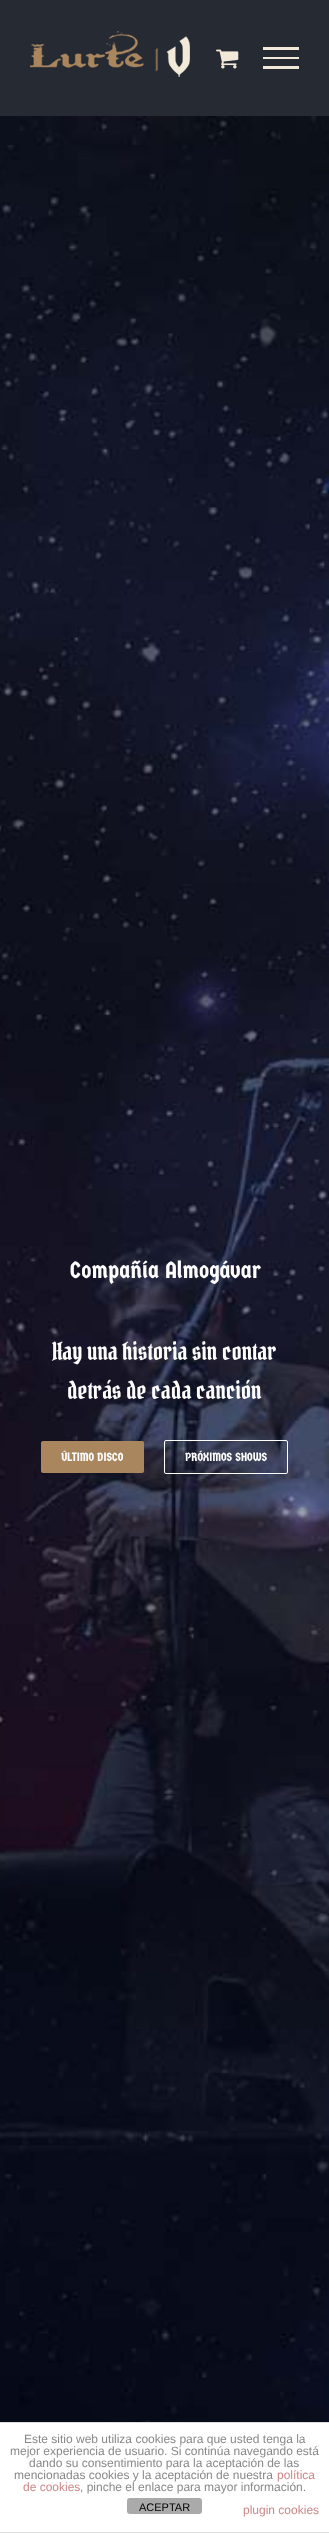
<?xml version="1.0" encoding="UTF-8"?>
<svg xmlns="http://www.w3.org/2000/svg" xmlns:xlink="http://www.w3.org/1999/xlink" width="329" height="2533">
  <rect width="100%" height="100%" fill="#252a33" />
  <image x="30" y="31" width="160" height="46" xlink:href="image1.png" />
  <image x="216" y="49" width="23" height="20" xlink:href="image2.png" />
  <rect x="263" y="47" width="36" height="3" fill="#f3e9d8" />
  <rect x="263" y="57" width="36" height="2" fill="#f3e9d8" />
  <rect x="263" y="66" width="36" height="3" fill="#f3e9d8" />
  <image x="0" y="116" width="329" height="2306" xlink:href="image3.png" />
  <rect x="41" y="1441" width="103" height="32" rx="2" fill="#aa865e" />
  <rect x="164.5" y="1440.5" width="123" height="33" rx="1.5" fill="none" stroke="#ffffff" />
  <rect y="2423" width="329" height="109" fill="#ffffff" />
  <rect y="2422" width="329" height="1" fill="#dddddd" />
  <rect y="2532" width="329" height="1" fill="#dddddd" />
  <rect x="127" y="2498" width="75" height="16" rx="3" fill="#aaaaaa" />
  <text x="70" y="1278" style="font-family: Germania One; font-size: 23.5px; fill: #ffffff">Compañía Almogávar</text>
  <text x="52" y="1360" style="font-family: Pirata One; font-size: 24px; fill: #ffffff">Hay una historia sin contar</text>
  <text x="67" y="1399" style="font-family: Pirata One; font-size: 24px; fill: #ffffff">detrás de cada canción</text>
  <text x="61" y="1461" style="font-family: Germania One; font-size: 12px; fill: #ffffff">ÚLTIMO DISCO</text>
  <text x="185" y="1461" style="font-family: Germania One; font-size: 12px; fill: #ffffff">PRÓXIMOS SHOWS</text>
  <text x="24" y="2443" style="font-family: Liberation Sans; font-size: 12px; fill: #888888">Este sitio web utiliza cookies para que usted tenga la</text>
  <text x="10" y="2455" style="font-family: Liberation Sans; font-size: 12px; fill: #888888">mejor experiencia de usuario. Si continúa navegando está</text>
  <text x="29" y="2467" style="font-family: Liberation Sans; font-size: 12px; fill: #888888">dando su consentimiento para la aceptación de las</text>
  <text x="14" y="2479" style="font-family: Liberation Sans; font-size: 12px; fill: #888888">mencionadas cookies y la aceptación de nuestra</text>
  <text x="277" y="2479" style="font-family: Liberation Sans; font-size: 12px; fill: #cc8888">política</text>
  <text x="23" y="2491" style="font-family: Liberation Sans; font-size: 12px; fill: #cc8888">de cookies</text>
  <text x="80" y="2491" style="font-family: Liberation Sans; font-size: 12px; fill: #888888">, pinche el enlace para mayor información.</text>
  <text x="243" y="2514" style="font-family: Liberation Sans; font-size: 12px; fill: #cc8888">plugin cookies</text>
  <text x="139" y="2511" style="font-family: Liberation Sans; font-size: 11px; fill: #000000">ACEPTAR</text>
</svg>
